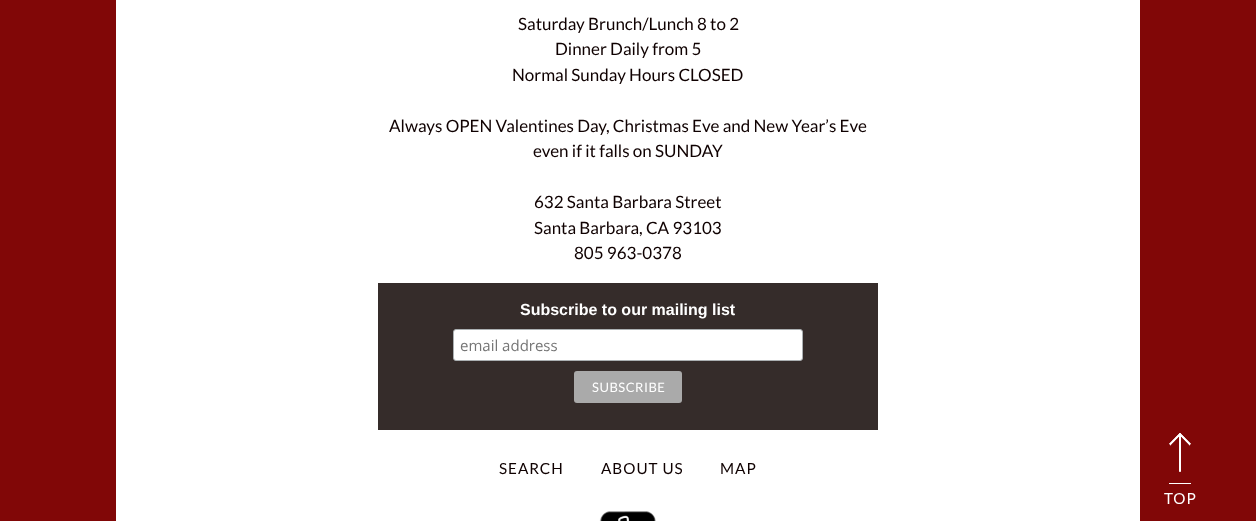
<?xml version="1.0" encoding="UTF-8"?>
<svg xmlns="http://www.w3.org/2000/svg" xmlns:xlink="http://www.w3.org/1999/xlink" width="1256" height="521">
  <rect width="100%" height="100%" fill="#810707" />
  <rect x="116" width="1024" height="521" fill="#ffffff" />
  <rect x="378" y="283" width="500" height="147" fill="#352c2a" />
  <rect x="453.5" y="329.5" width="349" height="31" rx="2.5" fill="#ffffff" stroke="#abb0b2" />
  <rect x="574" y="371" width="108" height="32" rx="3" fill="#aaaaaa" />
  <image x="599" y="511" width="57" height="10" xlink:href="image1.png" />
  <image x="1169" y="433" width="22" height="51" xlink:href="image2.png" />
  <text x="518" y="30" style="font-family: Lato; font-size: 17px; fill: #0f0101">Saturday Brunch/Lunch 8 to 2</text>
  <text x="555" y="55" style="font-family: Lato; font-size: 17px; fill: #0f0101">Dinner Daily from 5</text>
  <text x="512" y="81" style="font-family: Lato; font-size: 17px; fill: #0f0101">Normal Sunday Hours CLOSED</text>
  <text x="389" y="132" style="font-family: Lato; font-size: 17px; fill: #0f0101">Always OPEN Valentines Day, Christmas Eve and New Year’s Eve</text>
  <text x="533" y="157" style="font-family: Lato; font-size: 17px; fill: #0f0101">even if it falls on SUNDAY</text>
  <text x="534" y="208" style="font-family: Lato; font-size: 17px; fill: #0f0101">632 Santa Barbara Street</text>
  <text x="534" y="234" style="font-family: Lato; font-size: 17px; fill: #0f0101">Santa Barbara, CA 93103</text>
  <text x="574" y="259" style="font-family: Lato; font-size: 17px; fill: #0f0101">805 963-0378</text>
  <text x="520" y="315" style="font-family: Liberation Sans; font-size: 16px; font-weight: bold; fill: #ffffff">Subscribe to our mailing list</text>
  <text x="460" y="351" style="font-family: Open Sans; font-size: 15px; fill: #757575">email address</text>
  <text x="592" y="392" style="font-family: Lato; font-size: 13px; letter-spacing: 0.5px; fill: #ffffff">SUBSCRIBE</text>
  <text x="499" y="474" style="font-family: Lato; font-size: 15.25px; letter-spacing: 1px; fill: #0f0101">SEARCH</text>
  <text x="601" y="474" style="font-family: Lato; font-size: 15.25px; letter-spacing: 1px; fill: #0f0101">ABOUT US</text>
  <text x="720" y="474" style="font-family: Lato; font-size: 15.25px; letter-spacing: 1px; fill: #0f0101">MAP</text>
  <text x="1164" y="504" style="font-family: Lato; font-size: 15.25px; letter-spacing: 1px; fill: #ffffff">TOP</text>
</svg>
